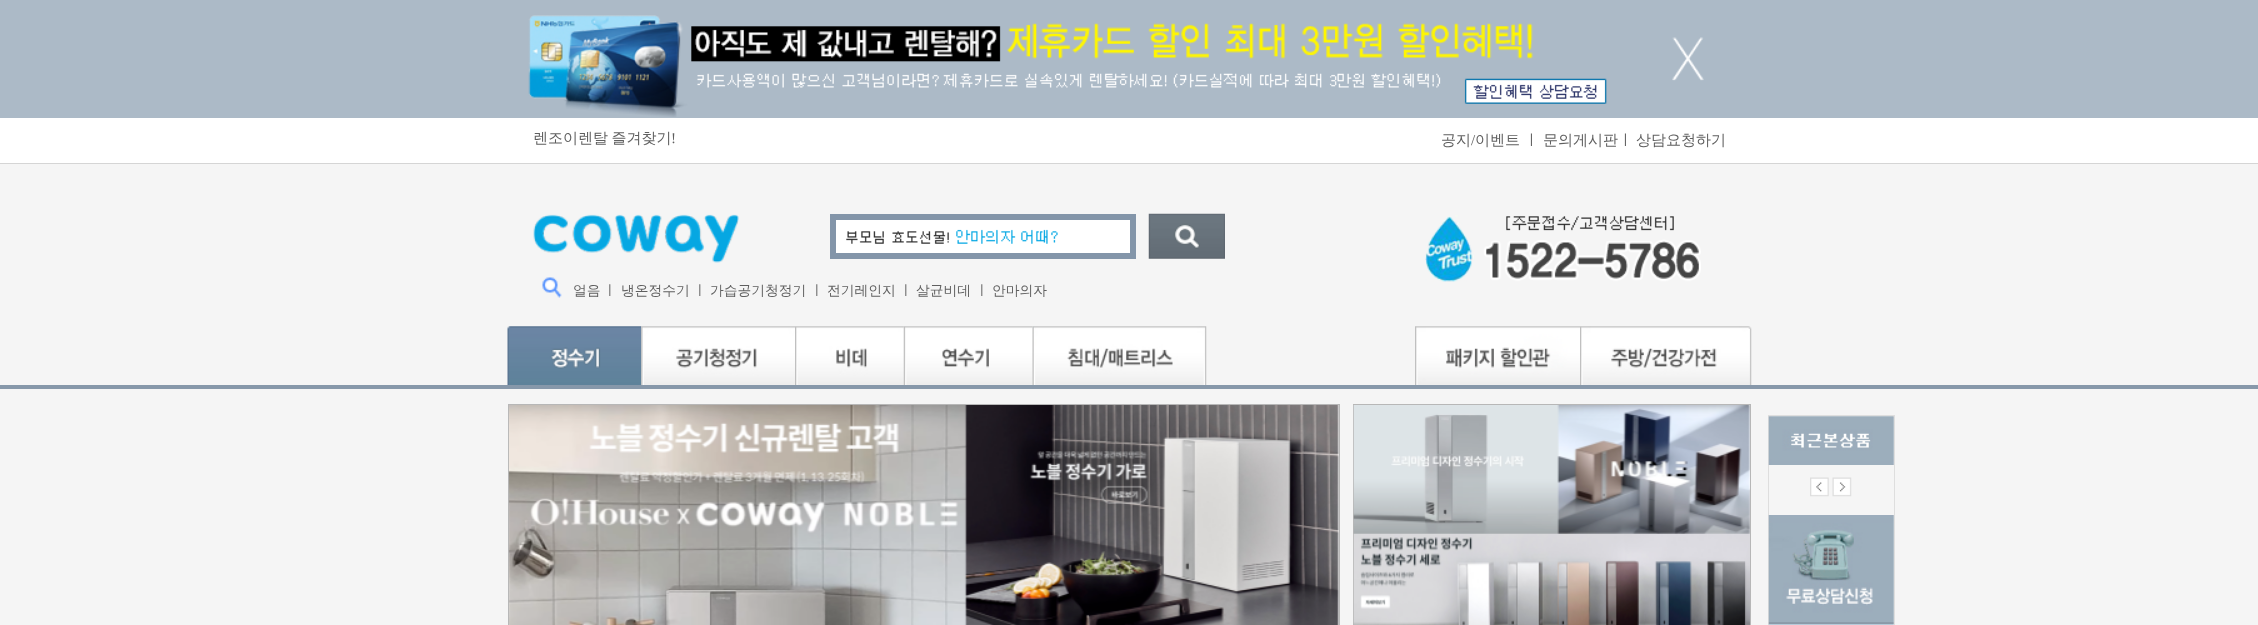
<?xml version="1.0" encoding="UTF-8"?>
<svg xmlns="http://www.w3.org/2000/svg" xmlns:xlink="http://www.w3.org/1999/xlink" width="2258" height="625">
  <rect width="100%" height="100%" fill="#f5f5f5" />
  <rect width="2258" height="118" fill="#acbac7" />
  <image x="528" y="15" width="1079" height="102" xlink:href="image1.png" />
  <image x="1672" y="37" width="32" height="44" xlink:href="image2.png" />
  <rect y="118" width="2258" height="45" fill="#ffffff" />
  <rect y="163" width="2258" height="1" fill="#d5d5d5" />
  <image x="1425" y="215" width="276" height="67" xlink:href="image3.png" />
  <image x="533" y="214" width="206" height="49" xlink:href="image4.png" />
  <rect x="836" y="220" width="294" height="33" fill="#ffffff" />
  <image x="846" y="229" width="212" height="15" xlink:href="image5.png" />
  <rect x="833" y="217" width="300" height="39" fill="none" stroke="#8395a9" stroke-width="6" />
  <image x="1148" y="213" width="77" height="46" xlink:href="image6.png" />
  <image x="542" y="277" width="20" height="21" xlink:href="image7.png" />
  <image x="507" y="326" width="135" height="59" xlink:href="image8.png" />
  <image x="641" y="326" width="154" height="59" xlink:href="image9.png" />
  <image x="795" y="326" width="109" height="59" xlink:href="image10.png" />
  <image x="903" y="326" width="130" height="59" xlink:href="image11.png" />
  <image x="1032" y="326" width="175" height="59" xlink:href="image12.png" />
  <image x="1415" y="326" width="165" height="59" xlink:href="image13.png" />
  <image x="1580" y="326" width="172" height="59" xlink:href="image14.png" />
  <rect y="385" width="2258" height="4" fill="#8798aa" />
  <rect x="508.5" y="404.5" width="831" height="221" fill="none" stroke="#b7b7b7" />
  <image x="508" y="405" width="831" height="220" xlink:href="image15.png" />
  <rect x="1353.5" y="404.5" width="397" height="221" fill="none" stroke="#b7b7b7" />
  <image x="1353" y="405" width="397" height="220" xlink:href="image16.png" />
  <rect x="1768.5" y="415.5" width="126" height="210" fill="none" stroke="#dedede" />
  <image x="1768" y="416" width="126" height="49" xlink:href="image17.png" />
  <image x="1810" y="477" width="19" height="20" xlink:href="image18.png" />
  <image x="1832" y="477" width="20" height="20" xlink:href="image19.png" />
  <image x="1768" y="515" width="126" height="110" xlink:href="image20.png" />
  <text x="533" y="143" word-spacing="-1" style="font-family: WenQuanYi Zen Hei; font-size: 15px; font-weight: 500; fill: #5f5f5f">렌조이렌탈 즐겨찾기</text>
  <text x="671" y="143" style="font-family: Liberation Serif; font-size: 15px; fill: #5f5f5f">!</text>
  <text x="1441" y="145" style="font-family: WenQuanYi Zen Hei; font-size: 15px; font-weight: 500; fill: #5f5f5f">공지</text>
  <text x="1471" y="145" style="font-family: Liberation Serif; font-size: 15px; fill: #5f5f5f">/</text>
  <text x="1475" y="145" style="font-family: WenQuanYi Zen Hei; font-size: 15px; font-weight: 500; fill: #5f5f5f">이벤트</text>
  <text x="1524" y="145" style="font-family: WenQuanYi Zen Hei; font-size: 15px; font-weight: 500; fill: #5f5f5f">ㅣ</text>
  <text x="1543" y="145" style="font-family: WenQuanYi Zen Hei; font-size: 15px; font-weight: 500; fill: #5f5f5f">문의게시판ㅣ</text>
  <text x="1636" y="145" style="font-family: WenQuanYi Zen Hei; font-size: 15px; font-weight: 500; fill: #5f5f5f">상담요청하기</text>
  <text x="573" y="295" style="font-family: WenQuanYi Zen Hei; font-size: 13.75px; font-weight: 500; fill: #5f5f5f">얼음</text>
  <text x="603" y="295" style="font-family: WenQuanYi Zen Hei; font-size: 13.75px; font-weight: 500; fill: #5f5f5f">ㅣ</text>
  <text x="621" y="295" style="font-family: WenQuanYi Zen Hei; font-size: 13.75px; font-weight: 500; fill: #5f5f5f">냉온정수기</text>
  <text x="693" y="295" style="font-family: WenQuanYi Zen Hei; font-size: 13.75px; font-weight: 500; fill: #5f5f5f">ㅣ</text>
  <text x="710" y="295" style="font-family: WenQuanYi Zen Hei; font-size: 13.75px; font-weight: 500; fill: #5f5f5f">가습공기청정기</text>
  <text x="810" y="295" style="font-family: WenQuanYi Zen Hei; font-size: 13.75px; font-weight: 500; fill: #5f5f5f">ㅣ</text>
  <text x="827" y="295" style="font-family: WenQuanYi Zen Hei; font-size: 13.75px; font-weight: 500; fill: #5f5f5f">전기레인지</text>
  <text x="899" y="295" style="font-family: WenQuanYi Zen Hei; font-size: 13.75px; font-weight: 500; fill: #5f5f5f">ㅣ</text>
  <text x="916" y="295" style="font-family: WenQuanYi Zen Hei; font-size: 13.75px; font-weight: 500; fill: #5f5f5f">살균비데</text>
  <text x="975" y="295" style="font-family: WenQuanYi Zen Hei; font-size: 13.75px; font-weight: 500; fill: #5f5f5f">ㅣ</text>
  <text x="992" y="295" style="font-family: WenQuanYi Zen Hei; font-size: 13.75px; font-weight: 500; fill: #5f5f5f">안마의자</text>
</svg>
